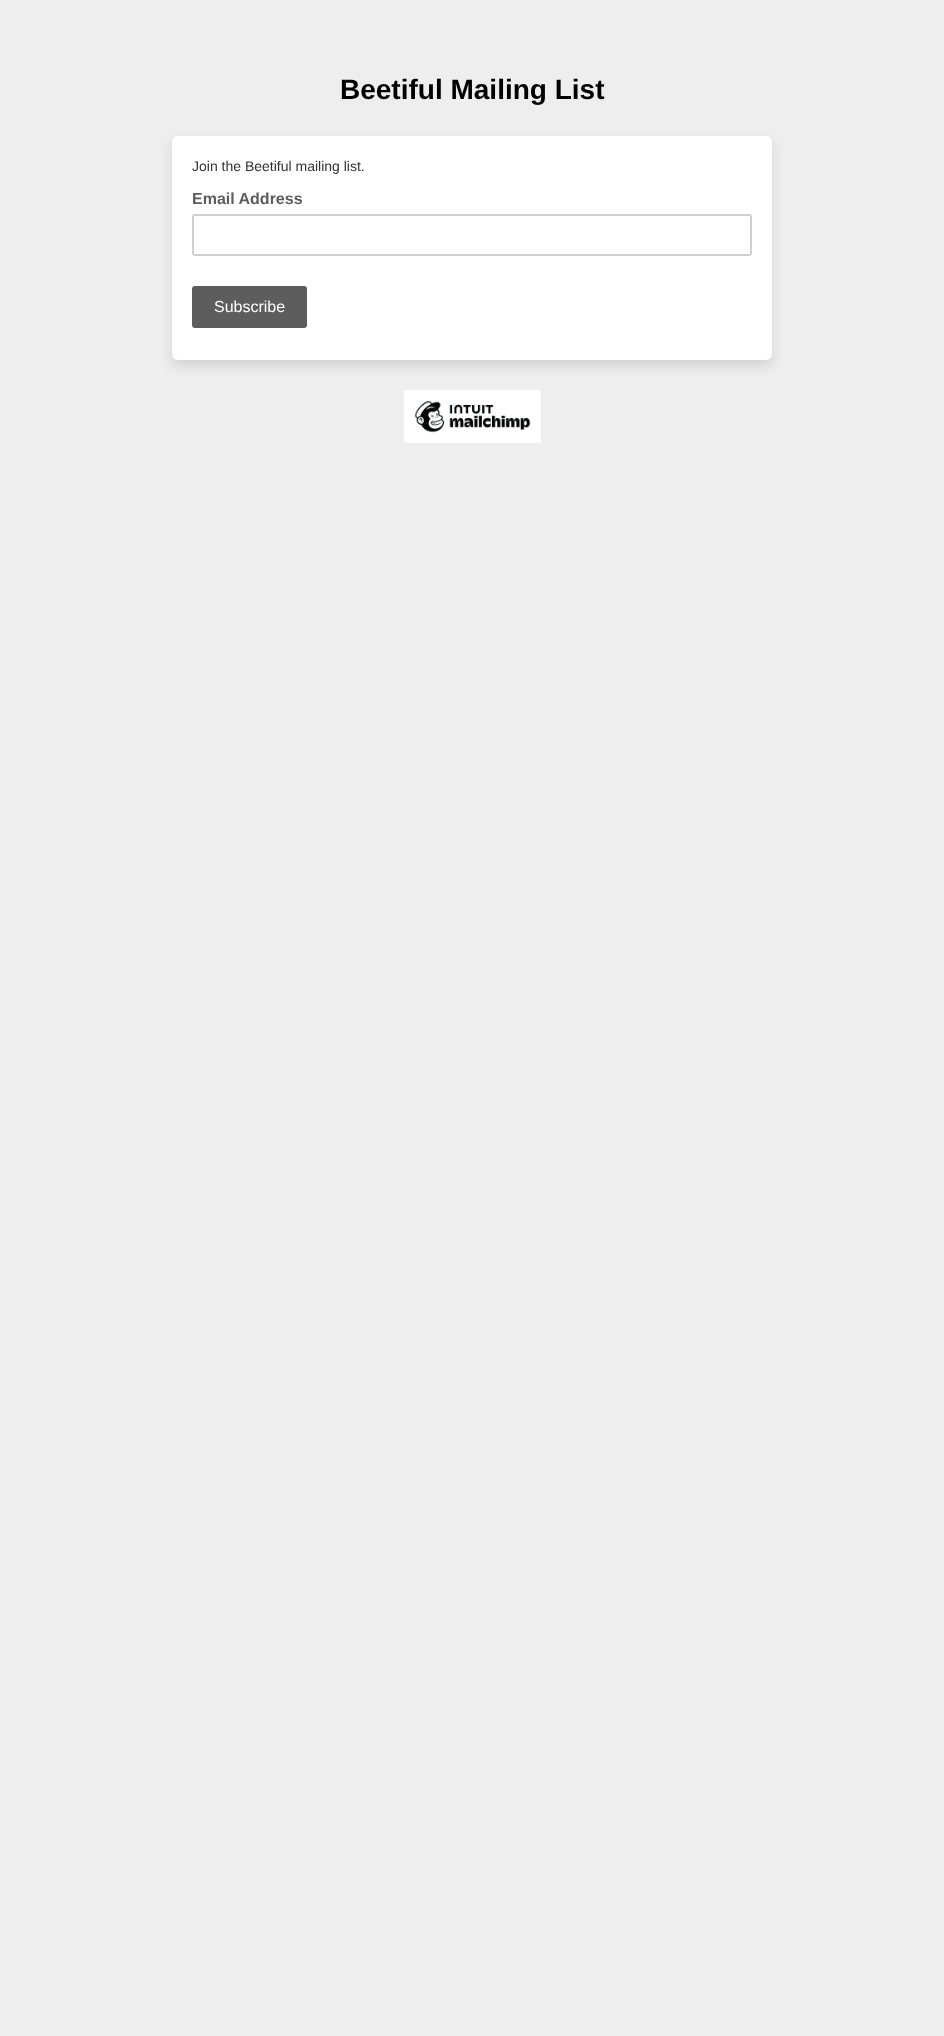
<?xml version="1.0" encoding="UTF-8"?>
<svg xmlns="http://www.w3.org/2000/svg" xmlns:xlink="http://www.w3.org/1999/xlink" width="944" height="2036">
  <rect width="100%" height="100%" fill="#eeeeee" />
  <rect x="172" y="142" width="600" height="224" rx="6" fill="#0d1216" fill-opacity="0.12" filter="blur(6px)" />
  <rect x="172" y="136" width="600" height="224" rx="6" fill="#ffffff" />
  <rect x="193" y="215" width="558" height="40" rx="2" fill="none" stroke="#d0d0d0" stroke-width="2" />
  <rect x="192" y="286" width="115" height="42" rx="3" fill="#5d5d5d" />
  <image x="404" y="390" width="137" height="53" xlink:href="image1.png" />
  <text x="340" y="99" style="font-family: Liberation Sans; font-size: 28px; font-weight: bold; fill: #000000">Beetiful Mailing List</text>
  <text x="192" y="171" style="font-family: Liberation Sans; font-size: 14px; fill: #333333">Join the Beetiful mailing list.</text>
  <text x="192" y="204" style="font-family: Liberation Sans; font-size: 16px; font-weight: bold; fill: #5d5d5d">Email Address</text>
  <text x="214" y="312" style="font-family: Liberation Sans; font-size: 16px; fill: #ffffff">Subscribe</text>
</svg>
